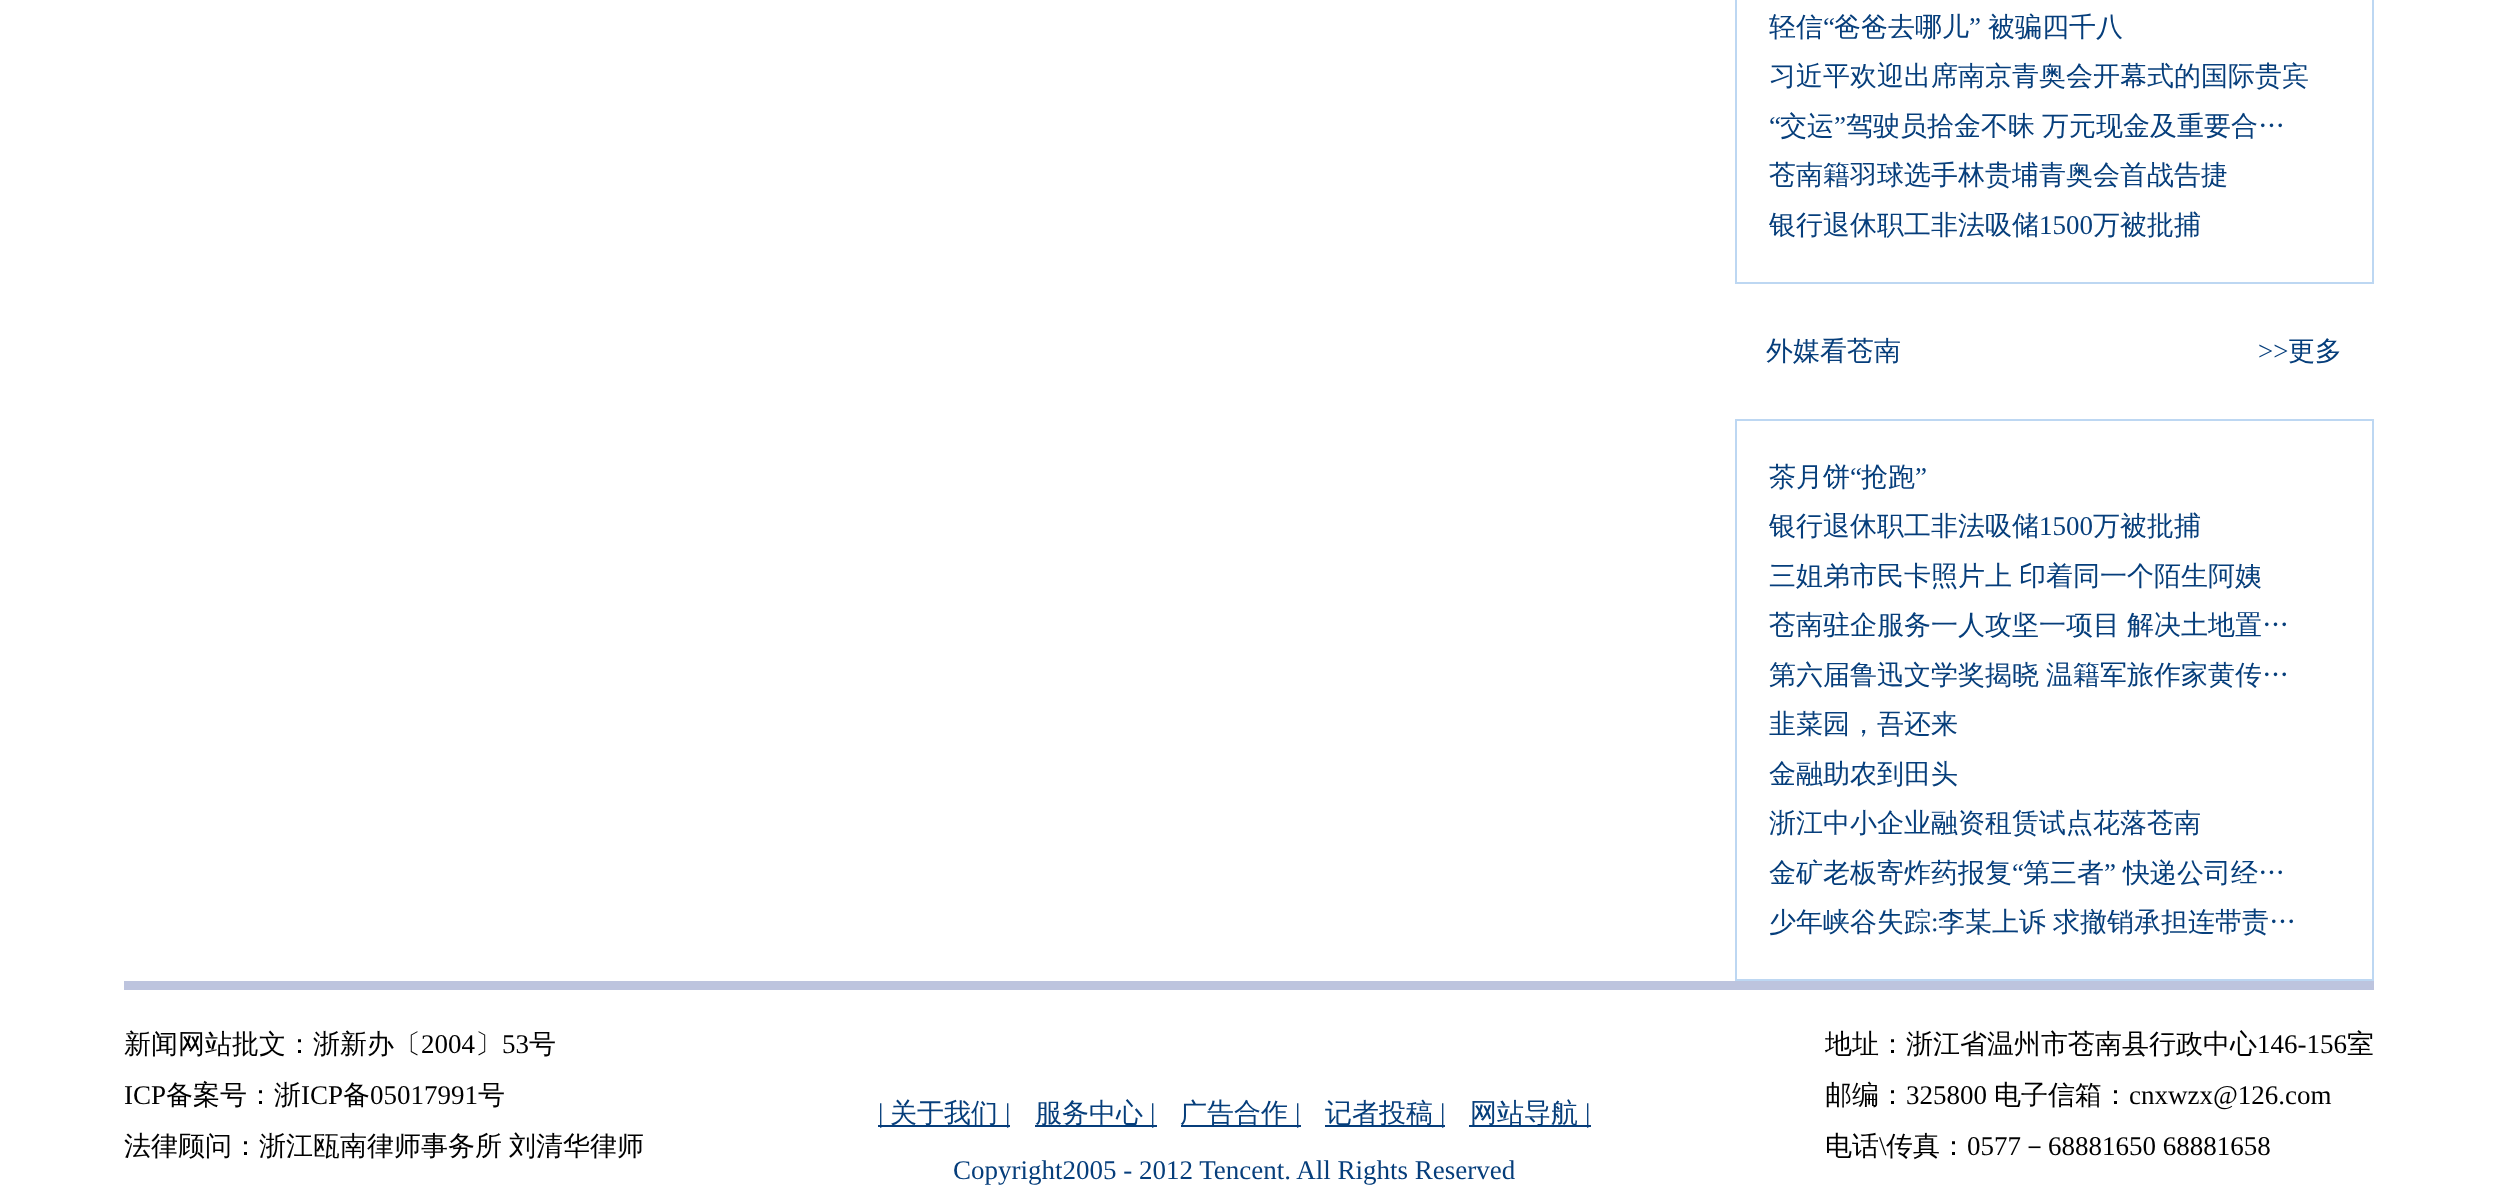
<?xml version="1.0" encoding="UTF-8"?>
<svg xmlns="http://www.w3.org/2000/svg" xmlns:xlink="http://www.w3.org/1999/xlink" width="2496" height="1190">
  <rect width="100%" height="100%" fill="#ffffff" />
  <rect x="1736" y="-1" width="637" height="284" fill="none" stroke="#bdd7f2" stroke-width="2" />
  <rect x="1736" y="420" width="637" height="560" fill="none" stroke="#bdd7f2" stroke-width="2" />
  <rect x="124" y="981" width="2250" height="9" fill="#bdc4de" />
  <rect x="878" y="1125" width="132" height="2" fill="#063e7b" />
  <rect x="1035" y="1125" width="122" height="2" fill="#063e7b" />
  <rect x="1181" y="1125" width="120" height="2" fill="#063e7b" />
  <rect x="1325" y="1125" width="120" height="2" fill="#063e7b" />
  <rect x="1469" y="1125" width="122" height="2" fill="#063e7b" />
  <text x="1769" y="36" style="font-family: WenQuanYi Zen Hei; font-size: 27px; font-weight: 500; fill: #063e7b">轻信</text>
  <text x="1823" y="36" style="font-family: Liberation Serif; font-size: 27px; fill: #063e7b">“</text>
  <text x="1834" y="36" style="font-family: WenQuanYi Zen Hei; font-size: 27px; font-weight: 500; fill: #063e7b">爸爸去哪儿</text>
  <text x="1969" y="36" style="font-family: Liberation Serif; font-size: 27px; fill: #063e7b">”</text>
  <text x="1988" y="36" style="font-family: WenQuanYi Zen Hei; font-size: 27px; font-weight: 500; fill: #063e7b">被骗四千八</text>
  <text x="1769" y="85" style="font-family: WenQuanYi Zen Hei; font-size: 27px; font-weight: 500; fill: #063e7b">习近平欢迎出席南京青奥会开幕式的国际贵宾</text>
  <text x="1769" y="135" style="font-family: Liberation Serif; font-size: 27px; fill: #063e7b">“</text>
  <text x="1780" y="135" style="font-family: WenQuanYi Zen Hei; font-size: 27px; font-weight: 500; fill: #063e7b">交运</text>
  <text x="1834" y="135" style="font-family: Liberation Serif; font-size: 27px; fill: #063e7b">”</text>
  <text x="1846" y="135" word-spacing="-1" style="font-family: WenQuanYi Zen Hei; font-size: 27px; font-weight: 500; fill: #063e7b">驾驶员拾金不昧 万元现金及重要合…</text>
  <text x="1769" y="184" style="font-family: WenQuanYi Zen Hei; font-size: 27px; font-weight: 500; fill: #063e7b">苍南籍羽球选手林贵埔青奥会首战告捷</text>
  <text x="1769" y="234" style="font-family: WenQuanYi Zen Hei; font-size: 27px; font-weight: 500; fill: #063e7b">银行退休职工非法吸储</text>
  <text x="2039" y="234" style="font-family: Liberation Serif; font-size: 27px; fill: #063e7b">1500</text>
  <text x="2093" y="234" style="font-family: WenQuanYi Zen Hei; font-size: 27px; font-weight: 500; fill: #063e7b">万被批捕</text>
  <text x="1766" y="360" style="font-family: WenQuanYi Zen Hei; font-size: 27px; font-weight: 500; fill: #063e7b">外媒看苍南</text>
  <text x="2258" y="360" style="font-family: Liberation Serif; font-size: 27px; fill: #063e7b">&gt;&gt;</text>
  <text x="2288" y="360" style="font-family: WenQuanYi Zen Hei; font-size: 27px; font-weight: 500; fill: #063e7b">更多</text>
  <text x="1769" y="486" style="font-family: WenQuanYi Zen Hei; font-size: 27px; font-weight: 500; fill: #063e7b">茶月饼</text>
  <text x="1850" y="486" style="font-family: Liberation Serif; font-size: 27px; fill: #063e7b">“</text>
  <text x="1861" y="486" style="font-family: WenQuanYi Zen Hei; font-size: 27px; font-weight: 500; fill: #063e7b">抢跑</text>
  <text x="1915" y="486" style="font-family: Liberation Serif; font-size: 27px; fill: #063e7b">”</text>
  <text x="1769" y="535" style="font-family: WenQuanYi Zen Hei; font-size: 27px; font-weight: 500; fill: #063e7b">银行退休职工非法吸储</text>
  <text x="2039" y="535" style="font-family: Liberation Serif; font-size: 27px; fill: #063e7b">1500</text>
  <text x="2093" y="535" style="font-family: WenQuanYi Zen Hei; font-size: 27px; font-weight: 500; fill: #063e7b">万被批捕</text>
  <text x="1769" y="585" word-spacing="-1" style="font-family: WenQuanYi Zen Hei; font-size: 27px; font-weight: 500; fill: #063e7b">三姐弟市民卡照片上 印着同一个陌生阿姨</text>
  <text x="1769" y="634" word-spacing="-1" style="font-family: WenQuanYi Zen Hei; font-size: 27px; font-weight: 500; fill: #063e7b">苍南驻企服务一人攻坚一项目 解决土地置…</text>
  <text x="1769" y="684" word-spacing="-1" style="font-family: WenQuanYi Zen Hei; font-size: 27px; font-weight: 500; fill: #063e7b">第六届鲁迅文学奖揭晓 温籍军旅作家黄传…</text>
  <text x="1769" y="733" style="font-family: WenQuanYi Zen Hei; font-size: 27px; font-weight: 500; fill: #063e7b">韭菜园，吾还来</text>
  <text x="1769" y="783" style="font-family: WenQuanYi Zen Hei; font-size: 27px; font-weight: 500; fill: #063e7b">金融助农到田头</text>
  <text x="1769" y="832" style="font-family: WenQuanYi Zen Hei; font-size: 27px; font-weight: 500; fill: #063e7b">浙江中小企业融资租赁试点花落苍南</text>
  <text x="1769" y="882" style="font-family: WenQuanYi Zen Hei; font-size: 27px; font-weight: 500; fill: #063e7b">金矿老板寄炸药报复</text>
  <text x="2012" y="882" style="font-family: Liberation Serif; font-size: 27px; fill: #063e7b">“</text>
  <text x="2023" y="882" style="font-family: WenQuanYi Zen Hei; font-size: 27px; font-weight: 500; fill: #063e7b">第三者</text>
  <text x="2104" y="882" style="font-family: Liberation Serif; font-size: 27px; fill: #063e7b">”</text>
  <text x="2123" y="882" style="font-family: WenQuanYi Zen Hei; font-size: 27px; font-weight: 500; fill: #063e7b">快递公司经…</text>
  <text x="1769" y="931" style="font-family: WenQuanYi Zen Hei; font-size: 27px; font-weight: 500; fill: #063e7b">少年峡谷失踪</text>
  <text x="1931" y="931" style="font-family: Liberation Serif; font-size: 27px; fill: #063e7b">:</text>
  <text x="1938" y="931" word-spacing="-1" style="font-family: WenQuanYi Zen Hei; font-size: 27px; font-weight: 500; fill: #063e7b">李某上诉 求撤销承担连带责…</text>
  <text x="124" y="1053" style="font-family: WenQuanYi Zen Hei; font-size: 27px; font-weight: 500; fill: #000000">新闻网站批文：浙新办〔</text>
  <text x="421" y="1053" style="font-family: Liberation Serif; font-size: 27px; fill: #000000">2004</text>
  <text x="475" y="1053" style="font-family: WenQuanYi Zen Hei; font-size: 27px; font-weight: 500; fill: #000000">〕</text>
  <text x="502" y="1053" style="font-family: Liberation Serif; font-size: 27px; fill: #000000">53</text>
  <text x="529" y="1053" style="font-family: WenQuanYi Zen Hei; font-size: 27px; font-weight: 500; fill: #000000">号</text>
  <text x="124" y="1104" style="font-family: Liberation Serif; font-size: 27px; fill: #000000">ICP</text>
  <text x="166" y="1104" style="font-family: WenQuanYi Zen Hei; font-size: 27px; font-weight: 500; fill: #000000">备案号：浙</text>
  <text x="301" y="1104" style="font-family: Liberation Serif; font-size: 27px; fill: #000000">ICP</text>
  <text x="343" y="1104" style="font-family: WenQuanYi Zen Hei; font-size: 27px; font-weight: 500; fill: #000000">备</text>
  <text x="370" y="1104" style="font-family: Liberation Serif; font-size: 27px; fill: #000000">05017991</text>
  <text x="478" y="1104" style="font-family: WenQuanYi Zen Hei; font-size: 27px; font-weight: 500; fill: #000000">号</text>
  <text x="124" y="1155" word-spacing="-1" style="font-family: WenQuanYi Zen Hei; font-size: 27px; font-weight: 500; fill: #000000">法律顾问：浙江瓯南律师事务所 刘清华律师</text>
  <text x="878" y="1122" style="font-family: Liberation Serif; font-size: 27px; fill: #063e7b">|</text>
  <text x="890" y="1122" style="font-family: WenQuanYi Zen Hei; font-size: 27px; font-weight: 500; fill: #063e7b">关于我们</text>
  <text x="1005" y="1122" style="font-family: Liberation Serif; font-size: 27px; fill: #063e7b">|</text>
  <text x="1035" y="1122" style="font-family: WenQuanYi Zen Hei; font-size: 27px; font-weight: 500; fill: #063e7b">服务中心</text>
  <text x="1150" y="1122" style="font-family: Liberation Serif; font-size: 27px; fill: #063e7b">|</text>
  <text x="1180" y="1122" style="font-family: WenQuanYi Zen Hei; font-size: 27px; font-weight: 500; fill: #063e7b">广告合作</text>
  <text x="1295" y="1122" style="font-family: Liberation Serif; font-size: 27px; fill: #063e7b">|</text>
  <text x="1325" y="1122" style="font-family: WenQuanYi Zen Hei; font-size: 27px; font-weight: 500; fill: #063e7b">记者投稿</text>
  <text x="1440" y="1122" style="font-family: Liberation Serif; font-size: 27px; fill: #063e7b">|</text>
  <text x="1470" y="1122" style="font-family: WenQuanYi Zen Hei; font-size: 27px; font-weight: 500; fill: #063e7b">网站导航</text>
  <text x="1585" y="1122" style="font-family: Liberation Serif; font-size: 27px; fill: #063e7b">|</text>
  <text x="1825" y="1053" style="font-family: WenQuanYi Zen Hei; font-size: 27px; font-weight: 500; fill: #000000">地址：浙江省温州市苍南县行政中心</text>
  <text x="2257" y="1053" style="font-family: Liberation Serif; font-size: 27px; fill: #000000">146-156</text>
  <text x="2347" y="1053" style="font-family: WenQuanYi Zen Hei; font-size: 27px; font-weight: 500; fill: #000000">室</text>
  <text x="1825" y="1104" style="font-family: WenQuanYi Zen Hei; font-size: 27px; font-weight: 500; fill: #000000">邮编：</text>
  <text x="1906" y="1104" style="font-family: Liberation Serif; font-size: 27px; fill: #000000">325800</text>
  <text x="1994" y="1104" style="font-family: WenQuanYi Zen Hei; font-size: 27px; font-weight: 500; fill: #000000">电子信箱：</text>
  <text x="2129" y="1104" style="font-family: Liberation Serif; font-size: 27px; fill: #000000">cnxwzx@126.com</text>
  <text x="1825" y="1155" style="font-family: WenQuanYi Zen Hei; font-size: 27px; font-weight: 500; fill: #000000">电话</text>
  <text x="1879" y="1155" style="font-family: Liberation Serif; font-size: 27px; fill: #000000">\</text>
  <text x="1886" y="1155" style="font-family: WenQuanYi Zen Hei; font-size: 27px; font-weight: 500; fill: #000000">传真：</text>
  <text x="1967" y="1155" style="font-family: Liberation Serif; font-size: 27px; fill: #000000">0577</text>
  <text x="2021" y="1155" style="font-family: WenQuanYi Zen Hei; font-size: 27px; font-weight: 500; fill: #000000">－</text>
  <text x="2048" y="1155" style="font-family: Liberation Serif; font-size: 27px; fill: #000000">68881650 68881658</text>
  <text x="953" y="1179" style="font-family: Liberation Serif; font-size: 27px; fill: #063e7b">Copyright2005 - 2012 Tencent. All Rights Reserved</text>
</svg>
